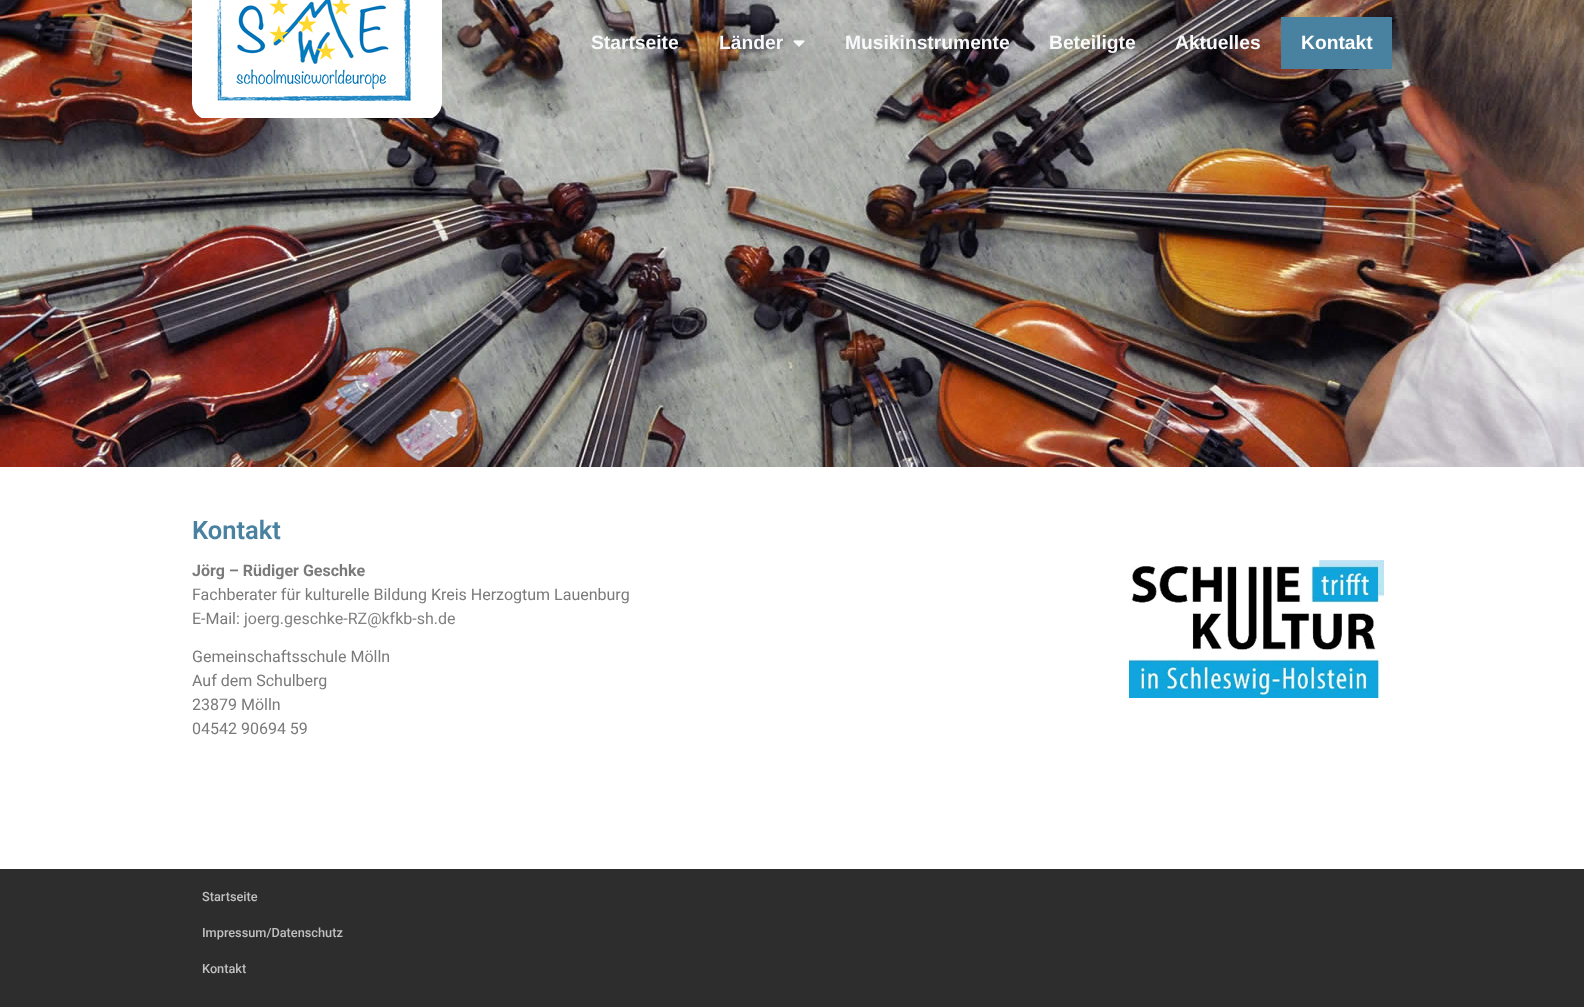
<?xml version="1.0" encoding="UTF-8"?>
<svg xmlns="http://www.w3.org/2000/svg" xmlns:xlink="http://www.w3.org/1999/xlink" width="1584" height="1007">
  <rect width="100%" height="100%" fill="#ffffff" />
  <image x="0" y="0" width="1584" height="467" xlink:href="image1.png" />
  <image x="192" y="0" width="250" height="118" xlink:href="image2.png" />
  <image x="793" y="40" width="12" height="7" xlink:href="image3.png" />
  <rect x="1281" y="17" width="111" height="52" fill="#4982a0" />
  <image x="1129" y="560" width="255" height="138" xlink:href="image4.png" />
  <rect y="869" width="1584" height="138" fill="#2d2d2d" />
  <text x="591" y="49" style="font-family: Liberation Sans; font-size: 19.25px; font-weight: bold; fill: #f7f9fb">Startseite</text>
  <text x="719" y="49" style="font-family: Liberation Sans; font-size: 19.25px; font-weight: bold; fill: #f7f9fb">Länder</text>
  <text x="845" y="49" style="font-family: Liberation Sans; font-size: 19.25px; font-weight: bold; fill: #f7f9fb">Musikinstrumente</text>
  <text x="1049" y="49" style="font-family: Liberation Sans; font-size: 19.25px; font-weight: bold; fill: #f7f9fb">Beteiligte</text>
  <text x="1175" y="49" style="font-family: Liberation Sans; font-size: 19.25px; font-weight: bold; fill: #f7f9fb">Aktuelles</text>
  <text x="1301" y="49" style="font-family: Liberation Sans; font-size: 19.25px; font-weight: bold; fill: #ffffff">Kontakt</text>
  <text x="192" y="539" style="font-family: Roboto; font-size: 25.5px; font-weight: 600; fill: #4982a0">Kontakt</text>
  <text x="192" y="576" style="font-family: Roboto; font-size: 16px; font-weight: bold; fill: #7a7a7a">Jörg – Rüdiger Geschke</text>
  <text x="192" y="600" style="font-family: Roboto; font-size: 16px; fill: #7a7a7a">Fachberater für kulturelle Bildung Kreis Herzogtum Lauenburg</text>
  <text x="192" y="624" style="font-family: Roboto; font-size: 16px; fill: #7a7a7a">E-Mail:</text>
  <text x="244" y="624" style="font-family: Roboto; font-size: 16px; fill: #808080">joerg.geschke-RZ@kfkb-sh.de</text>
  <text x="192" y="662" style="font-family: Roboto; font-size: 16px; fill: #7a7a7a">Gemeinschaftsschule Mölln</text>
  <text x="192" y="686" style="font-family: Roboto; font-size: 16px; fill: #7a7a7a">Auf dem Schulberg</text>
  <text x="192" y="710" style="font-family: Roboto; font-size: 16px; fill: #7a7a7a">23879 Mölln</text>
  <text x="192" y="734" style="font-family: Roboto; font-size: 16px; fill: #7a7a7a">04542 90694 59</text>
  <text x="202" y="901" style="font-family: Roboto; font-size: 12.75px; font-weight: 500; fill: #c0c0c0">Startseite</text>
  <text x="202" y="937" style="font-family: Roboto; font-size: 12.75px; font-weight: 500; fill: #c0c0c0">Impressum/Datenschutz</text>
  <text x="202" y="973" style="font-family: Roboto; font-size: 12.75px; font-weight: 500; fill: #c0c0c0">Kontakt</text>
</svg>
